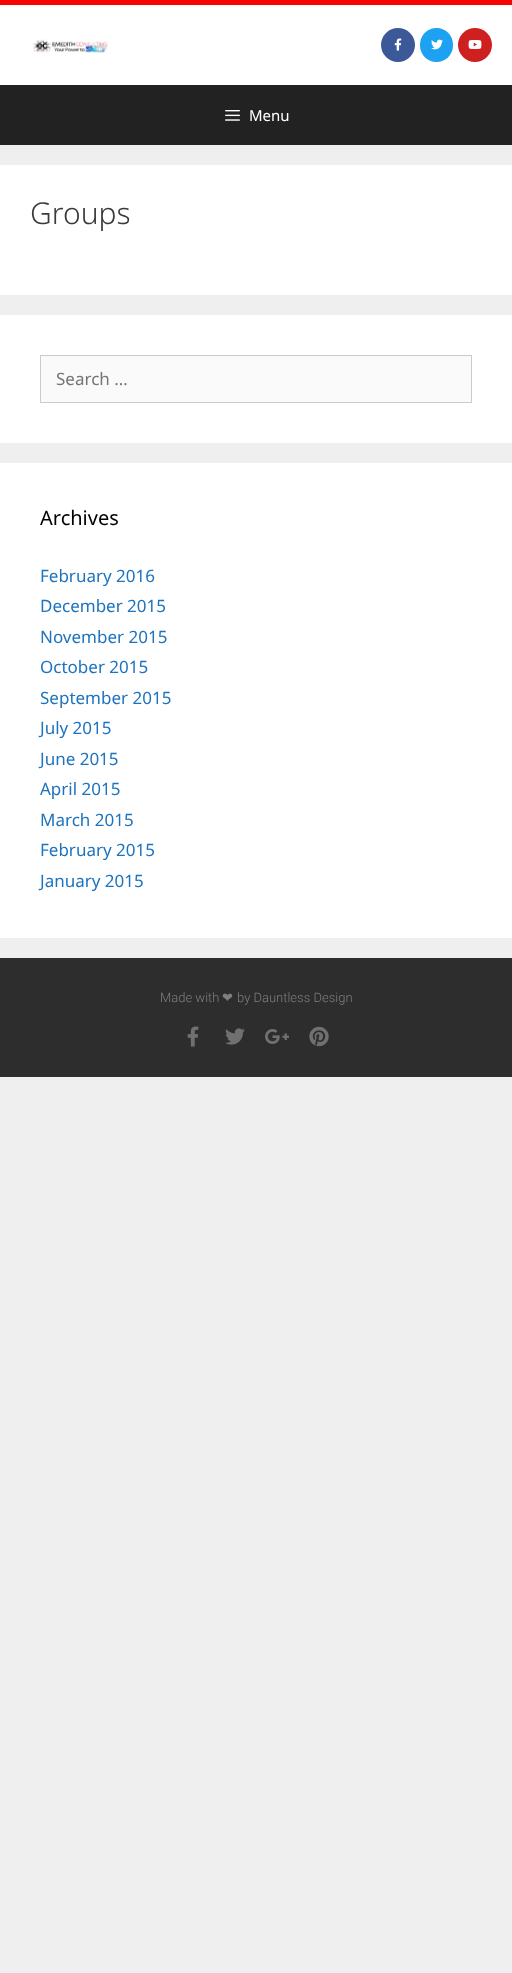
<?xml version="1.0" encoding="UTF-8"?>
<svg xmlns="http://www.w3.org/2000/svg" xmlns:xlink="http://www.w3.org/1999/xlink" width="512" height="1973">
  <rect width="100%" height="100%" fill="#efefef" />
  <rect y="5" width="512" height="80" fill="#ffffff" />
  <rect width="512" height="5" fill="#f90202" />
  <image x="32" y="39" width="76" height="14" xlink:href="image1.png" />
  <circle cx="398" cy="45" r="17" fill="#3b5998" />
  <image x="394" y="38" width="8" height="13" xlink:href="image2.png" />
  <rect x="420" y="28" width="33" height="34" rx="16.5" fill="#1da1f2" />
  <image x="431" y="39" width="12" height="11" xlink:href="image3.png" />
  <circle cx="475" cy="45" r="17" fill="#cd201f" />
  <image x="468" y="40" width="14" height="9" xlink:href="image4.png" />
  <rect y="85" width="512" height="60" fill="#222222" />
  <image x="225" y="110" width="15" height="11" xlink:href="image5.png" />
  <rect y="165" width="512" height="130" fill="#ffffff" />
  <rect y="315" width="512" height="128" fill="#ffffff" />
  <rect x="40.5" y="355.5" width="431" height="47" fill="#fafafa" stroke="#cccccc" />
  <rect y="463" width="512" height="475" fill="#ffffff" />
  <rect y="958" width="512" height="119" fill="#2d2d2d" />
  <image x="187" y="1026" width="12" height="21" xlink:href="image6.png" />
  <image x="225" y="1028" width="20" height="17" xlink:href="image7.png" />
  <image x="265" y="1029" width="24" height="15" xlink:href="image8.png" />
  <image x="309" y="1026" width="20" height="21" xlink:href="image9.png" />
  <text x="249" y="121" style="font-family: Noto Sans; font-size: 15px; fill: #ffffff">Menu</text>
  <text x="30" y="224" style="font-family: Noto Sans; font-size: 30px; font-weight: 300; fill: #3a3a3a">Groups</text>
  <text x="56" y="385" style="font-family: Noto Sans; font-size: 17px; fill: #757575">Search …</text>
  <text x="40" y="525" style="font-family: Noto Sans; font-size: 20px; fill: #000000">Archives</text>
  <text x="40" y="582" style="font-family: Noto Sans; font-size: 17px; fill: #1e73be">February 2016</text>
  <text x="40" y="612" style="font-family: Noto Sans; font-size: 17px; fill: #1e73be">December 2015</text>
  <text x="40" y="643" style="font-family: Noto Sans; font-size: 17px; fill: #1e73be">November 2015</text>
  <text x="40" y="673" style="font-family: Noto Sans; font-size: 17px; fill: #1e73be">October 2015</text>
  <text x="40" y="704" style="font-family: Noto Sans; font-size: 17px; fill: #1e73be">September 2015</text>
  <text x="40" y="734" style="font-family: Noto Sans; font-size: 17px; fill: #1e73be">July 2015</text>
  <text x="40" y="765" style="font-family: Noto Sans; font-size: 17px; fill: #1e73be">June 2015</text>
  <text x="40" y="795" style="font-family: Noto Sans; font-size: 17px; fill: #1e73be">April 2015</text>
  <text x="40" y="826" style="font-family: Noto Sans; font-size: 17px; fill: #1e73be">March 2015</text>
  <text x="40" y="856" style="font-family: Noto Sans; font-size: 17px; fill: #1e73be">February 2015</text>
  <text x="40" y="887" style="font-family: Noto Sans; font-size: 17px; fill: #1e73be">January 2015</text>
  <text x="160" y="1002" style="font-family: Roboto; font-size: 13px; font-weight: 300; fill: #7f7f7f">Made with</text>
  <text x="222" y="1002" style="font-family: DejaVu Sans; font-size: 13px; fill: #7f7f7f">❤</text>
  <text x="237" y="1002" style="font-family: Roboto; font-size: 13px; font-weight: 300; fill: #7f7f7f">by Dauntless Design</text>
</svg>
